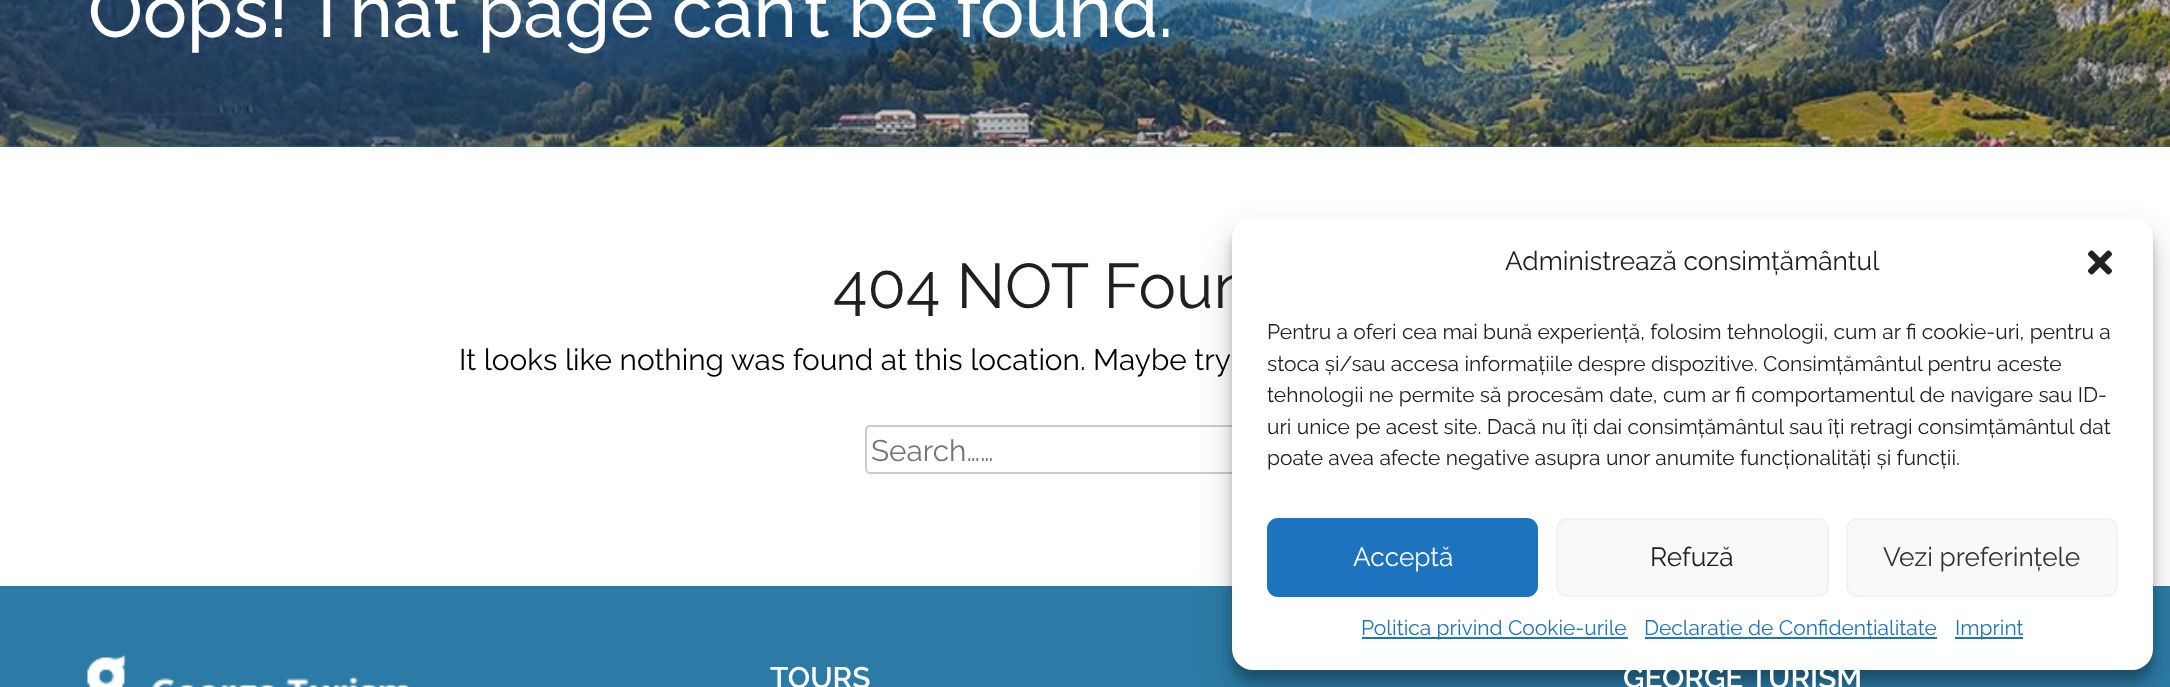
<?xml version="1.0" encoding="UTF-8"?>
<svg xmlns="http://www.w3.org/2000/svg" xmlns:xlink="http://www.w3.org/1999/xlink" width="2170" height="687">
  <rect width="100%" height="100%" fill="#ffffff" />
  <rect y="146" width="2170" height="1" fill="#2c7ba6" />
  <image x="0" y="0" width="2170" height="147" xlink:href="image1.png" />
  <rect x="866" y="426" width="390" height="47" rx="4" fill="none" stroke="#cccccc" stroke-width="2" />
  <rect y="586" width="2170" height="101" fill="#2c7ba6" />
  <image x="87" y="655" width="322" height="32" xlink:href="image2.png" />
  <rect x="1232" y="228" width="921" height="453" rx="21" fill="#000000" fill-opacity="0.23" filter="blur(5px)" />
  <rect x="1232" y="235" width="921" height="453" rx="21" fill="#000000" fill-opacity="0.19" filter="blur(17.5px)" />
  <text x="88" y="37" style="font-family: Raleway; font-size: 73.5px; font-weight: 500; fill: #ffffff">Oops! That page can’t be found.</text>
  <text x="833" y="308" style="font-family: Raleway; font-size: 63px; fill: #202020">404 NOT Foun</text>
  <text x="459" y="370" style="font-family: Raleway; font-size: 29.75px; fill: #000000">It looks like nothing was found at this location. Maybe try</text>
  <text x="871" y="461" style="font-family: Raleway; font-size: 29.75px; fill: #757575">Search……</text>
  <text x="770" y="688" style="font-family: Raleway; font-size: 29.75px; font-weight: 600; fill: #ffffff">TOURS</text>
  <text x="1623" y="688" style="font-family: Raleway; font-size: 29.75px; font-weight: 600; fill: #ffffff">GEORGE TURISM</text>
  <rect x="1232" y="217" width="921" height="453" rx="21" fill="#ffffff" />
  <text x="1505" y="270" style="font-family: Raleway; font-size: 26.25px; fill: #202020">Administrează consimțământul</text>
  <image x="2088" y="250" width="24" height="25" xlink:href="image3.png" />
  <text x="1267" y="339" style="font-family: Raleway; font-size: 21px; fill: #202020">Pentru a oferi cea mai bună experiență, folosim tehnologii, cum ar fi cookie-uri, pentru a</text>
  <text x="1267" y="371" style="font-family: Raleway; font-size: 21px; fill: #202020">stoca și/sau accesa informațiile despre dispozitive. Consimțământul pentru aceste</text>
  <text x="1267" y="402" style="font-family: Raleway; font-size: 21px; fill: #202020">tehnologii ne permite să procesăm date, cum ar fi comportamentul de navigare sau ID-</text>
  <text x="1267" y="434" style="font-family: Raleway; font-size: 21px; fill: #202020">uri unice pe acest site. Dacă nu îți dai consimțământul sau îți retragi consimțământul dat</text>
  <text x="1267" y="465" style="font-family: Raleway; font-size: 21px; fill: #202020">poate avea afecte negative asupra unor anumite funcționalități și funcții.</text>
  <rect x="1268" y="519" width="269" height="77" rx="10" fill="#1e73be" stroke="#1e73be" stroke-width="2" />
  <text x="1353" y="566" style="font-family: Raleway; font-size: 26.25px; fill: #ffffff">Acceptă</text>
  <rect x="1557" y="519" width="271" height="77" rx="10" fill="#f9f9f9" stroke="#f2f2f2" stroke-width="2" />
  <text x="1650" y="566" style="font-family: Raleway; font-size: 26.25px; fill: #202020">Refuză</text>
  <rect x="1847" y="519" width="270" height="77" rx="10" fill="#f9f9f9" stroke="#f2f2f2" stroke-width="2" />
  <text x="1883" y="566" style="font-family: Raleway; font-size: 26.25px; fill: #333333">Vezi preferințele</text>
  <rect x="1362" y="637" width="266" height="2" fill="#1e73be" />
  <text x="1361" y="635" style="font-family: Raleway; font-size: 21px; fill: #1e73be">Politica privind Cookie-urile</text>
  <rect x="1645" y="637" width="292" height="2" fill="#1e73be" />
  <text x="1644" y="635" style="font-family: Raleway; font-size: 21px; fill: #1e73be">Declarație de Confidențialitate</text>
  <rect x="1955" y="637" width="68" height="2" fill="#1e73be" />
  <text x="1955" y="635" style="font-family: Raleway; font-size: 21px; fill: #1e73be">Imprint</text>
</svg>
